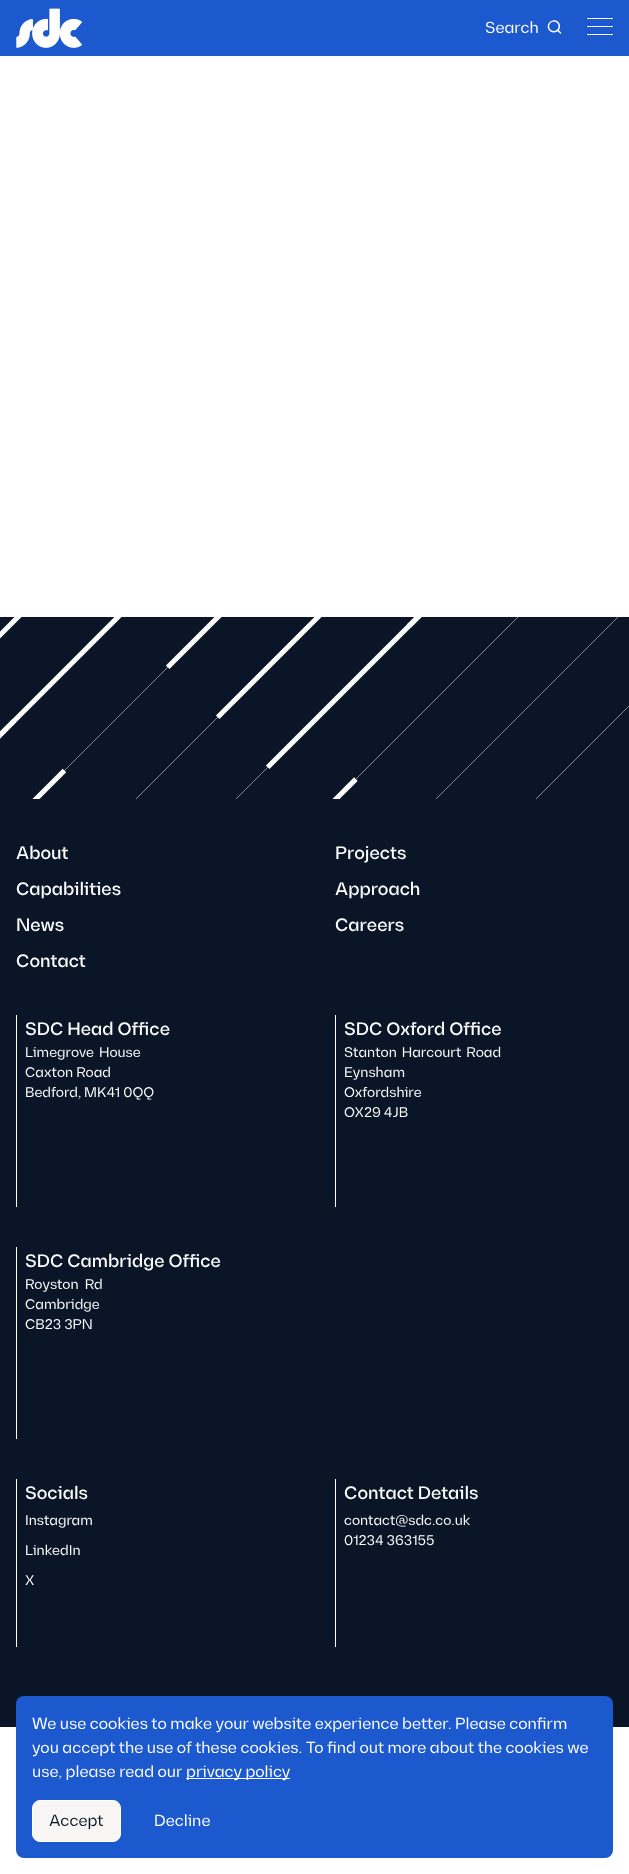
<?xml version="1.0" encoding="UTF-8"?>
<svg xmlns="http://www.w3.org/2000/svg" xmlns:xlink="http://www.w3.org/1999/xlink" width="629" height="1874">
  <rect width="100%" height="100%" fill="#ffffff" />
  <rect width="629" height="56" fill="#1c58ce" />
  <image x="16" y="8" width="66" height="40" xlink:href="image1.png" />
  <image x="547" y="20" width="15" height="14" xlink:href="image2.png" />
  <rect x="587" y="18" width="26" height="1" fill="#ffffff" />
  <rect x="587" y="26" width="26" height="1" fill="#ffffff" />
  <rect x="587" y="34" width="26" height="1" fill="#ffffff" />
  <image x="0" y="617" width="629" height="182" xlink:href="image3.png" />
  <rect y="799" width="629" height="928" fill="#0a1627" />
  <rect x="16" y="1015" width="1" height="192" fill="#ffffff" />
  <rect x="335" y="1015" width="1" height="192" fill="#ffffff" />
  <rect x="16" y="1247" width="1" height="192" fill="#ffffff" />
  <rect x="16" y="1479" width="1" height="168" fill="#ffffff" />
  <rect x="335" y="1479" width="1" height="168" fill="#ffffff" />
  <rect x="16" y="1696" width="597" height="162" rx="8" fill="#1c58ce" />
  <rect x="186" y="1778" width="104" height="1" fill="#ffffff" />
  <rect x="32.5" y="1800.5" width="88" height="41" rx="7.5" fill="#f7f6f4" stroke="#ffffff" />
  <text x="485" y="33" style="font-family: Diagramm; font-size: 16px; fill: #ffffff">Search</text>
  <text x="16" y="859" style="font-family: Diagramm; font-size: 18px; font-weight: 500; fill: #ffffff">About</text>
  <text x="335" y="859" style="font-family: Diagramm; font-size: 18px; font-weight: 500; fill: #ffffff">Projects</text>
  <text x="16" y="895" style="font-family: Diagramm; font-size: 18px; font-weight: 500; fill: #ffffff">Capabilities</text>
  <text x="335" y="895" style="font-family: Diagramm; font-size: 18px; font-weight: 500; fill: #ffffff">Approach</text>
  <text x="16" y="931" style="font-family: Diagramm; font-size: 18px; font-weight: 500; fill: #ffffff">News</text>
  <text x="335" y="931" style="font-family: Diagramm; font-size: 18px; font-weight: 500; fill: #ffffff">Careers</text>
  <text x="16" y="967" style="font-family: Diagramm; font-size: 18px; font-weight: 500; fill: #ffffff">Contact</text>
  <text x="25" y="1035" style="font-family: Diagramm; font-size: 18px; font-weight: 500; fill: #ffffff">SDC Head Office</text>
  <text x="25" y="1057" word-spacing="2" style="font-family: Diagramm; font-size: 14px; fill: #ffffff">Limegrove House</text>
  <text x="25" y="1077" style="font-family: Diagramm; font-size: 14px; fill: #ffffff">Caxton Road</text>
  <text x="25" y="1097" style="font-family: Diagramm; font-size: 14px; fill: #ffffff">Bedford, MK41 0QQ</text>
  <text x="344" y="1035" style="font-family: Diagramm; font-size: 18px; font-weight: 500; fill: #ffffff">SDC Oxford Office</text>
  <text x="344" y="1057" word-spacing="2" style="font-family: Diagramm; font-size: 14px; fill: #ffffff">Stanton Harcourt Road</text>
  <text x="344" y="1077" style="font-family: Diagramm; font-size: 14px; fill: #ffffff">Eynsham</text>
  <text x="344" y="1097" style="font-family: Diagramm; font-size: 14px; fill: #ffffff">Oxfordshire</text>
  <text x="344" y="1117" style="font-family: Diagramm; font-size: 14px; fill: #ffffff">OX29 4JB</text>
  <text x="25" y="1267" style="font-family: Diagramm; font-size: 18px; font-weight: 500; fill: #ffffff">SDC Cambridge Office</text>
  <text x="25" y="1289" word-spacing="3" style="font-family: Diagramm; font-size: 14px; fill: #ffffff">Royston Rd</text>
  <text x="25" y="1309" style="font-family: Diagramm; font-size: 14px; fill: #ffffff">Cambridge</text>
  <text x="25" y="1329" style="font-family: Diagramm; font-size: 14px; fill: #ffffff">CB23 3PN</text>
  <text x="25" y="1499" style="font-family: Diagramm; font-size: 18px; font-weight: 500; fill: #ffffff">Socials</text>
  <text x="25" y="1525" style="font-family: Diagramm; font-size: 14px; fill: #ffffff">Instagram</text>
  <text x="25" y="1555" style="font-family: Diagramm; font-size: 14px; fill: #ffffff">LinkedIn</text>
  <text x="25" y="1585" style="font-family: Diagramm; font-size: 14px; fill: #ffffff">X</text>
  <text x="344" y="1499" style="font-family: Diagramm; font-size: 18px; font-weight: 500; fill: #ffffff">Contact Details</text>
  <text x="344" y="1525" style="font-family: Diagramm; font-size: 14px; fill: #ffffff">contact@sdc.co.uk</text>
  <text x="344" y="1545" style="font-family: Diagramm; font-size: 14px; fill: #ffffff">01234 363155</text>
  <text x="32" y="1729" style="font-family: Diagramm; font-size: 16px; fill: #ffffff">We use cookies to make your website experience better. Please confirm</text>
  <text x="32" y="1753" style="font-family: Diagramm; font-size: 16px; fill: #ffffff">you accept the use of these cookies. To find out more about the cookies we</text>
  <text x="32" y="1777" style="font-family: Diagramm; font-size: 16px; fill: #ffffff">use, please read our</text>
  <text x="186" y="1777" style="font-family: Diagramm; font-size: 16px; fill: #ffffff">privacy policy</text>
  <text x="49" y="1826" style="font-family: Diagramm; font-size: 16px; fill: #0a1627">Accept</text>
  <text x="154" y="1826" style="font-family: Diagramm; font-size: 16px; fill: #ffffff">Decline</text>
</svg>
